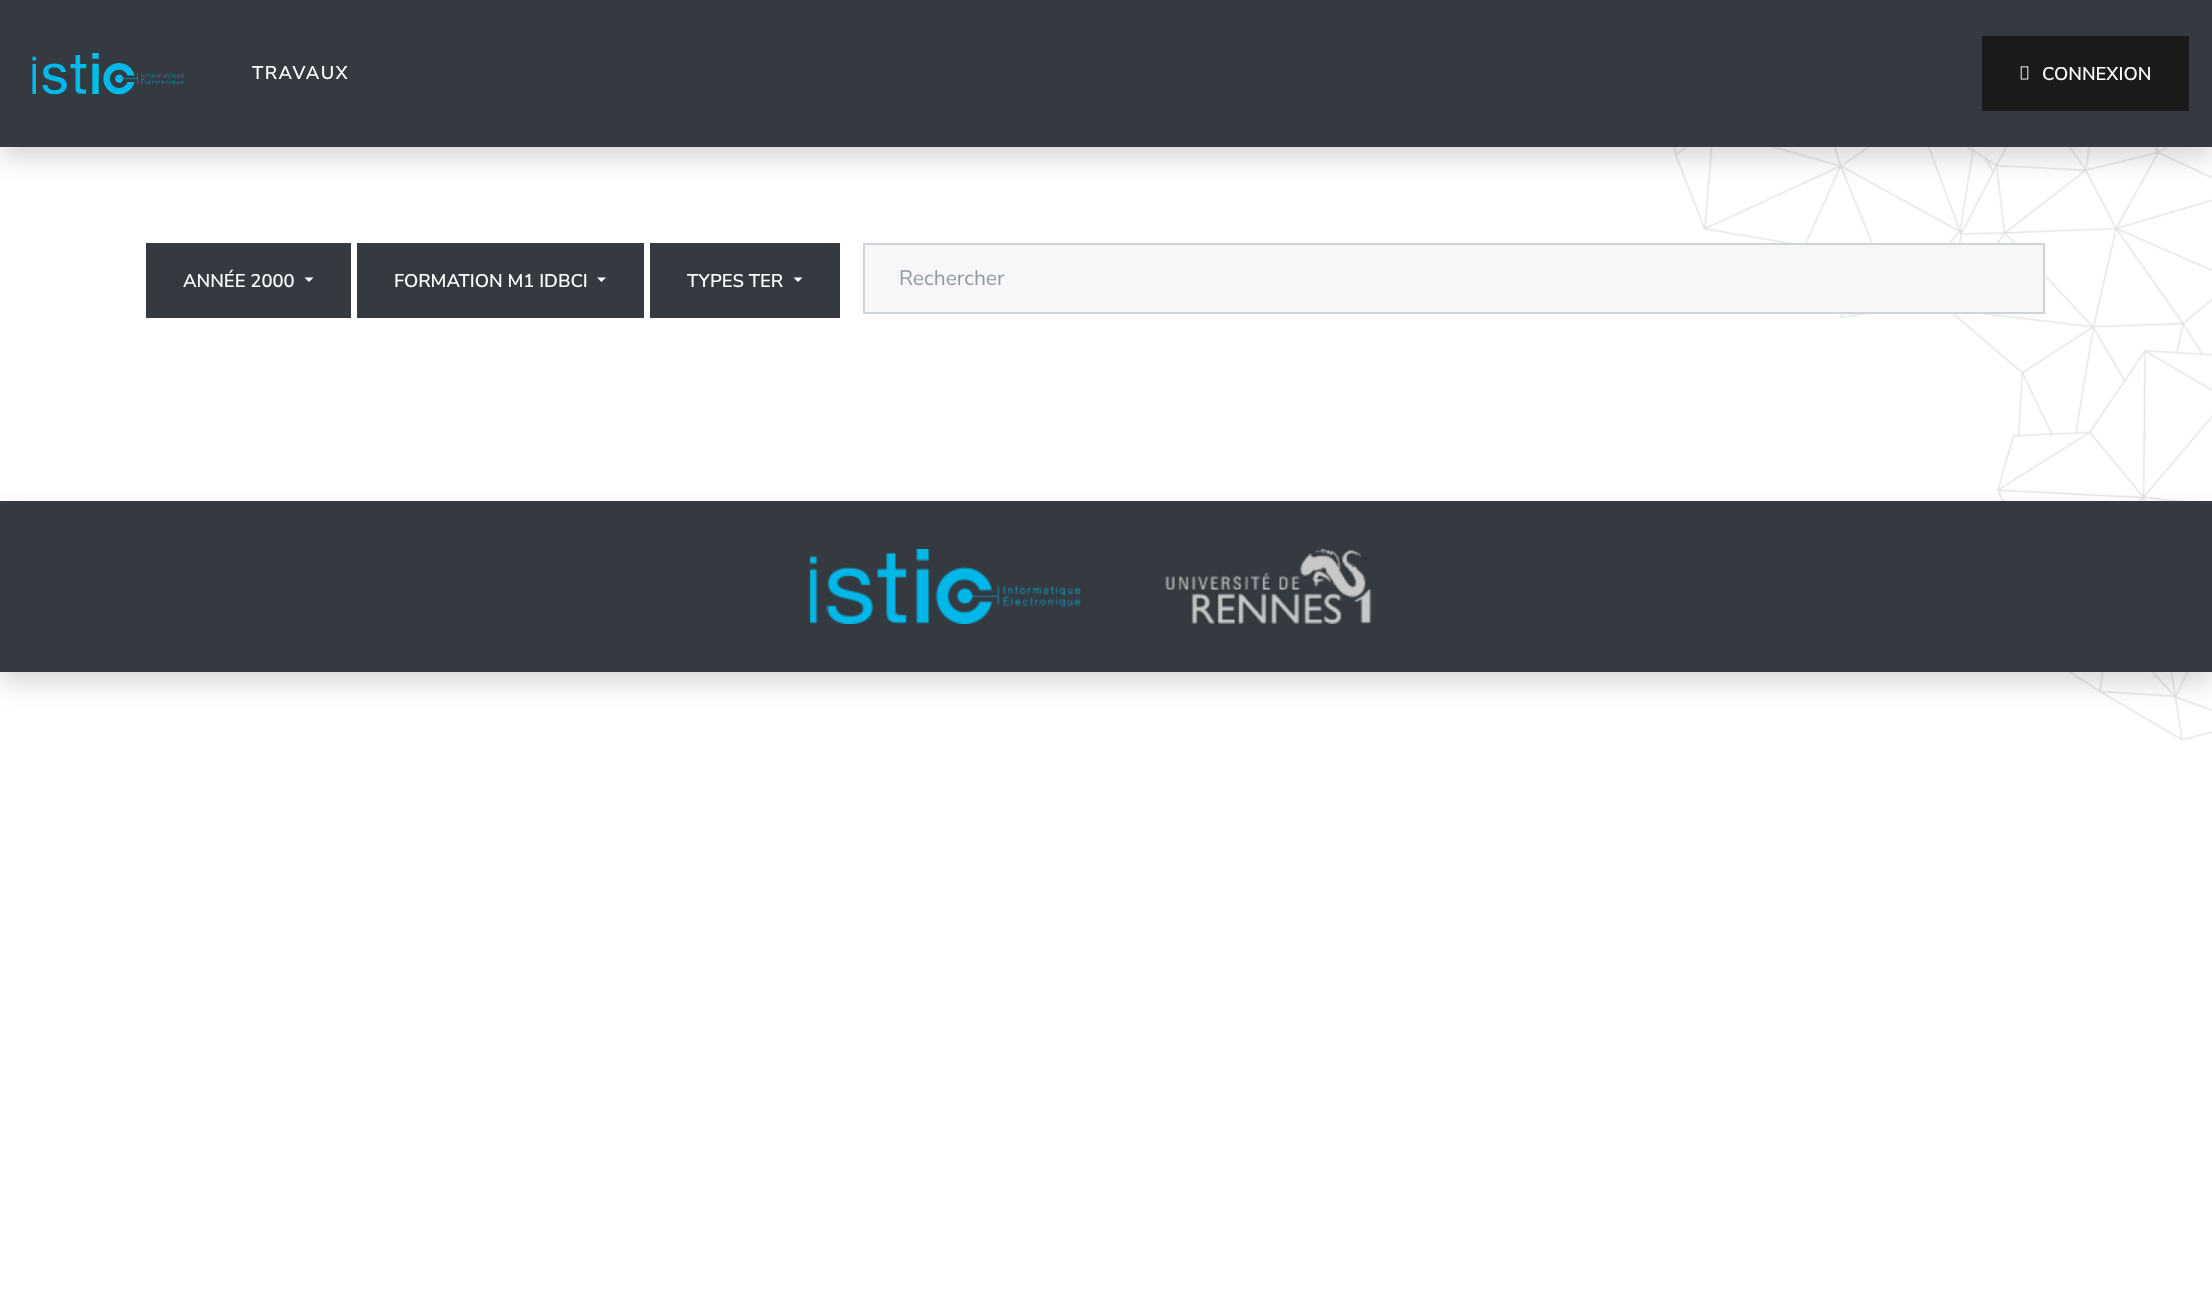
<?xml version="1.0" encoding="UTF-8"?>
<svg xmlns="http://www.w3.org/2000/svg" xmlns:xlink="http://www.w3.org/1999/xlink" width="2212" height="1307">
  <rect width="100%" height="100%" fill="#ffffff" />
  <image x="1673" y="147" width="539" height="594" xlink:href="image1.png" />
  <rect y="12" width="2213" height="147" fill="#000000" fill-opacity="0.15" filter="blur(12px)" />
  <rect width="2212" height="147" fill="#343a40" />
  <image x="32" y="53" width="152" height="42" xlink:href="image2.png" />
  <rect x="1982" y="36" width="207" height="75" fill="#1a1a1a" />
  <image x="2020" y="66" width="9" height="14" xlink:href="image3.png" />
  <rect x="146" y="243" width="205" height="75" fill="#343a40" />
  <path d="M 304.5 277.5 h 9 l -4.5 4.5 z" fill="#ffffff" />
  <rect x="357" y="243" width="287" height="75" fill="#343a40" />
  <path d="M 597 277.5 h 9 l -4.5 4.5 z" fill="#ffffff" />
  <rect x="650" y="243" width="190" height="75" fill="#343a40" />
  <path d="M 793.5 277.5 h 9 l -4.5 4.5 z" fill="#ffffff" />
  <rect x="864" y="244" width="1180" height="69" fill="#f7f7f9" stroke="#ced4da" stroke-width="2" />
  <rect y="513" width="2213" height="171" fill="#000000" fill-opacity="0.15" filter="blur(12px)" />
  <rect y="501" width="2212" height="171" fill="#343a40" />
  <image x="809" y="549" width="272" height="75" xlink:href="image4.png" />
  <image x="1165" y="549" width="207" height="75" xlink:href="image5.png" />
  <text x="252" y="79" style="font-family: Nunito Sans; font-size: 18.4px; font-weight: 600; letter-spacing: 1.5px; fill: #ffffff">TRAVAUX</text>
  <text x="2042" y="80" style="font-family: Nunito Sans; font-size: 18.4px; font-weight: 600; fill: #ffffff">CONNEXION</text>
  <text x="183" y="287" style="font-family: Nunito Sans; font-size: 18.4px; font-weight: 600; fill: #ffffff">ANNÉE 2000</text>
  <text x="394" y="287" style="font-family: Nunito Sans; font-size: 18.4px; font-weight: 600; fill: #ffffff">FORMATION M1 IDBCI</text>
  <text x="687" y="287" style="font-family: Nunito Sans; font-size: 18.4px; font-weight: 600; fill: #ffffff">TYPES TER</text>
  <text x="899" y="285" style="font-family: Nunito Sans; font-size: 21px; fill: #919aa1">Rechercher</text>
</svg>
